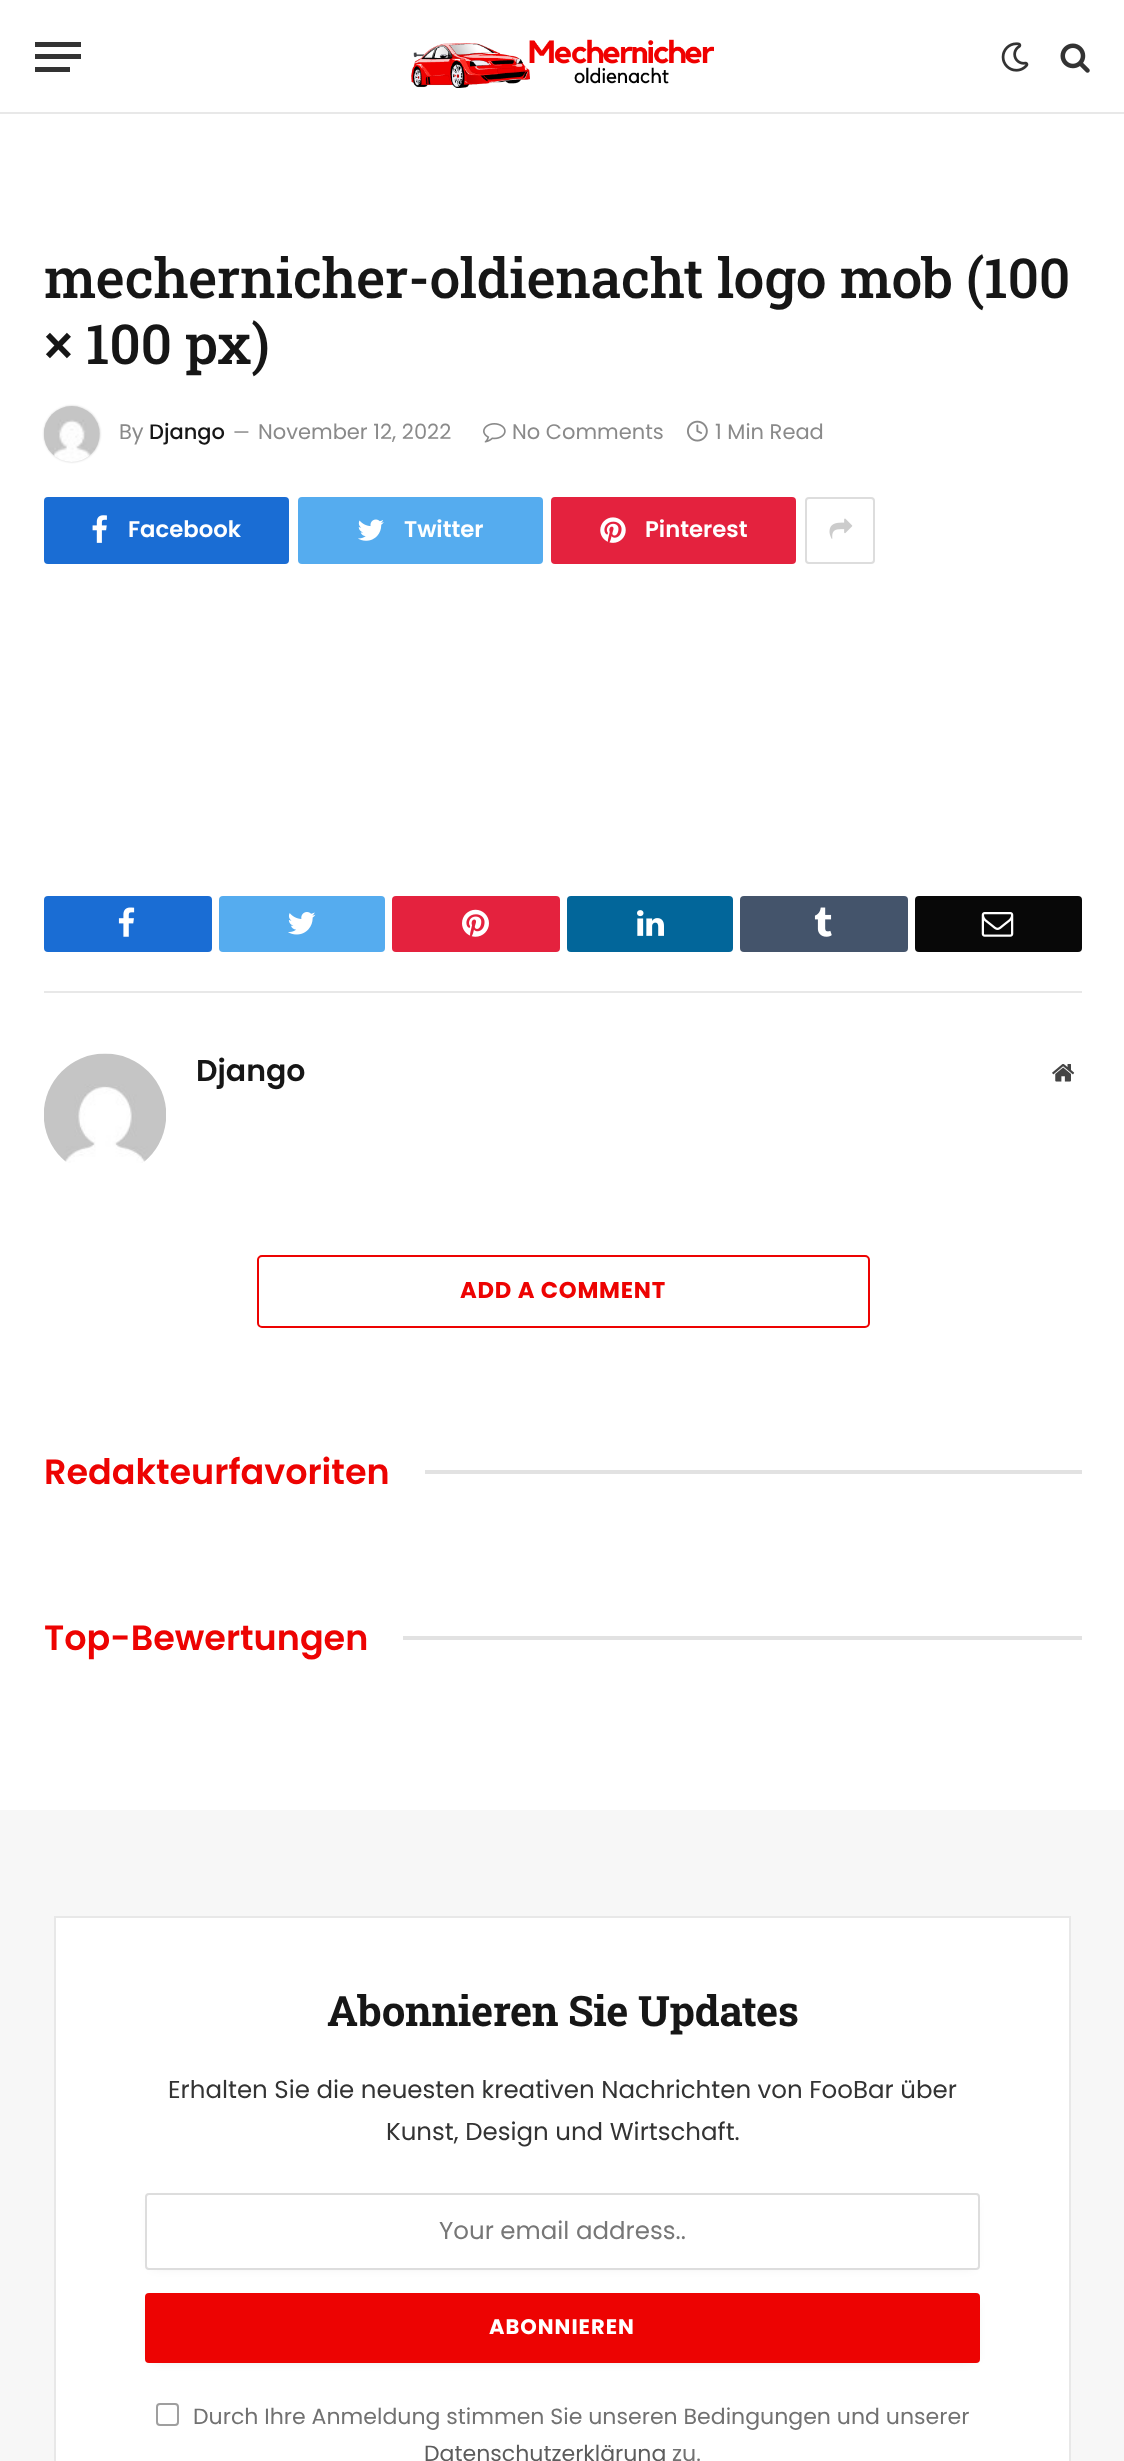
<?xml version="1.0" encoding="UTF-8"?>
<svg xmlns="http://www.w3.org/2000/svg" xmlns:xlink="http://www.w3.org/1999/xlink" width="1124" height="2461">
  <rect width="100%" height="100%" fill="#ffffff" />
  <rect y="112" width="1124" height="2" fill="#e8e8e8" />
  <rect x="35" y="67" width="35" height="5" fill="#333333" />
  <rect x="35" y="42" width="46" height="5" fill="#333333" />
  <rect x="35" y="54" width="46" height="5" fill="#333333" />
  <image x="411" y="39" width="303" height="49" xlink:href="image1.png" />
  <image x="1001" y="42" width="28" height="30" xlink:href="image2.png" />
  <image x="1060" y="43" width="30" height="30" xlink:href="image3.png" />
  <rect x="44" y="406" width="56" height="56" rx="28" fill="#000000" fill-opacity="0.2" filter="blur(1px)" />
  <image x="44" y="406" width="56" height="56" xlink:href="image4.png" />
  <image x="483" y="423" width="23" height="20" xlink:href="image5.png" />
  <image x="687" y="420" width="21" height="22" xlink:href="image6.png" />
  <rect x="44" y="497" width="245" height="67" rx="4" fill="#1a6dd4" />
  <image x="92" y="515" width="15" height="28" xlink:href="image7.png" />
  <rect x="298" y="497" width="245" height="67" rx="4" fill="#55acef" />
  <image x="358" y="519" width="26" height="22" xlink:href="image8.png" />
  <rect x="551" y="497" width="245" height="67" rx="4" fill="#e4223e" />
  <image x="600" y="517" width="26" height="26" xlink:href="image9.png" />
  <rect x="806" y="498" width="68" height="65" rx="3" fill="none" stroke="#dddddd" stroke-width="2" />
  <image x="829" y="518" width="24" height="21" xlink:href="image10.png" />
  <rect x="44" y="896" width="168" height="56" rx="4" fill="#1a6dd4" />
  <image x="118" y="907" width="17" height="30" xlink:href="image11.png" />
  <rect x="219" y="896" width="166" height="56" rx="4" fill="#55acef" />
  <image x="288" y="912" width="28" height="23" xlink:href="image12.png" />
  <rect x="392" y="896" width="168" height="56" rx="4" fill="#e4223e" />
  <image x="462" y="909" width="27" height="28" xlink:href="image13.png" />
  <rect x="567" y="896" width="166" height="56" rx="4" fill="#02669a" />
  <image x="637" y="910" width="27" height="26" xlink:href="image14.png" />
  <rect x="740" y="896" width="168" height="56" rx="4" fill="#44546b" />
  <image x="814" y="907" width="18" height="30" xlink:href="image15.png" />
  <rect x="915" y="896" width="167" height="56" rx="4" fill="#080808" />
  <image x="981" y="912" width="33" height="25" xlink:href="image16.png" />
  <rect x="44" y="991" width="1038" height="2" fill="#e8e8e8" />
  <image x="44" y="1053" width="122" height="110" xlink:href="image17.png" />
  <image x="1052" y="1064" width="23" height="18" xlink:href="image18.png" />
  <rect x="258" y="1256" width="611" height="71" rx="4" fill="none" stroke="#ed0302" stroke-width="2" />
  <rect x="425" y="1470" width="657" height="4" fill="#e2e2e2" />
  <rect x="403" y="1636" width="679" height="4" fill="#e2e2e2" />
  <rect y="1810" width="1124" height="651" fill="#f7f7f7" />
  <rect x="55" y="1917" width="1015" height="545" fill="#ffffff" stroke="#e8e8e8" stroke-width="2" />
  <rect x="152" y="2203" width="821" height="63" fill="#000000" fill-opacity="0.1" filter="blur(6px)" />
  <rect x="146" y="2194" width="833" height="75" rx="3" fill="#ffffff" stroke="#dddddd" stroke-width="2" />
  <rect x="152" y="2303" width="821" height="56" fill="#000000" fill-opacity="0.16" filter="blur(6px)" />
  <rect x="145" y="2293" width="835" height="70" rx="4" fill="#ed0302" />
  <rect x="157" y="2404" width="21" height="21" rx="3" fill="none" stroke="#9f9f9f" stroke-width="2" />
  <text x="44" y="298" style="font-family: Roboto Slab; font-size: 55.25px; font-weight: 500; letter-spacing: -0.3px; fill: #161616">mechernicher-oldienacht logo mob (100</text>
  <text x="44" y="364" style="font-family: Roboto Slab; font-size: 55.25px; font-weight: 500; letter-spacing: -0.3px; fill: #161616">× 100 px)</text>
  <text x="119" y="439" style="font-family: Poppins; font-size: 21px; fill: #8a8a8a">By</text>
  <text x="149" y="439" style="font-family: Poppins; font-size: 21px; font-weight: 500; fill: #161616">Django</text>
  <text x="233" y="439" style="font-family: Poppins; font-size: 19px; fill: #8a8a8a">—</text>
  <text x="258" y="439" style="font-family: Poppins; font-size: 21px; fill: #8a8a8a">November 12, 2022</text>
  <text x="512" y="439" style="font-family: Poppins; font-size: 21px; fill: #8a8a8a">No Comments</text>
  <text x="715" y="439" style="font-family: Poppins; font-size: 21px; fill: #8a8a8a">1 Min Read</text>
  <text x="128" y="537" style="font-family: Poppins; font-size: 22.75px; font-weight: 600; fill: #ffffff">Facebook</text>
  <text x="404" y="537" style="font-family: Poppins; font-size: 22.75px; font-weight: 600; fill: #ffffff">Twitter</text>
  <text x="645" y="537" style="font-family: Poppins; font-size: 22.75px; font-weight: 600; fill: #ffffff">Pinterest</text>
  <text x="196" y="1081" style="font-family: Poppins; font-size: 30px; font-weight: 600; fill: #161616">Django</text>
  <text x="460" y="1298" style="font-family: Poppins; font-size: 22.75px; font-weight: bold; letter-spacing: 0.75px; fill: #ed0302">ADD A COMMENT</text>
  <text x="44" y="1484" style="font-family: Poppins; font-size: 35px; font-weight: 600; fill: #ed0302">Redakteurfavoriten</text>
  <text x="44" y="1650" style="font-family: Poppins; font-size: 35px; font-weight: 600; fill: #ed0302">Top-Bewertungen</text>
  <text x="327" y="2026" style="font-family: Roboto Slab; font-size: 42px; font-weight: bold; letter-spacing: -0.4px; fill: #161616">Abonnieren Sie Updates</text>
  <text x="168" y="2098" style="font-family: Poppins; font-size: 24.5px; fill: #333333">Erhalten Sie die neuesten kreativen Nachrichten von FooBar über</text>
  <text x="386" y="2140" style="font-family: Poppins; font-size: 24.5px; fill: #333333">Kunst, Design und Wirtschaft.</text>
  <text x="439" y="2239" style="font-family: Poppins; font-size: 24.5px; fill: #777777">Your email address..</text>
  <text x="489" y="2334" style="font-family: Poppins; font-size: 21px; font-weight: bold; letter-spacing: 1px; fill: #ffffff">ABONNIEREN</text>
  <text x="193" y="2424" style="font-family: Poppins; font-size: 22.05px; fill: #717171">Durch Ihre Anmeldung stimmen Sie unseren Bedingungen und unserer</text>
  <text x="424" y="2461" style="font-family: Poppins; font-size: 22.05px; fill: #5c5c5c">Datenschutzerklärung</text>
  <text x="672" y="2461" style="font-family: Poppins; font-size: 22.05px; fill: #717171">zu.</text>
</svg>
